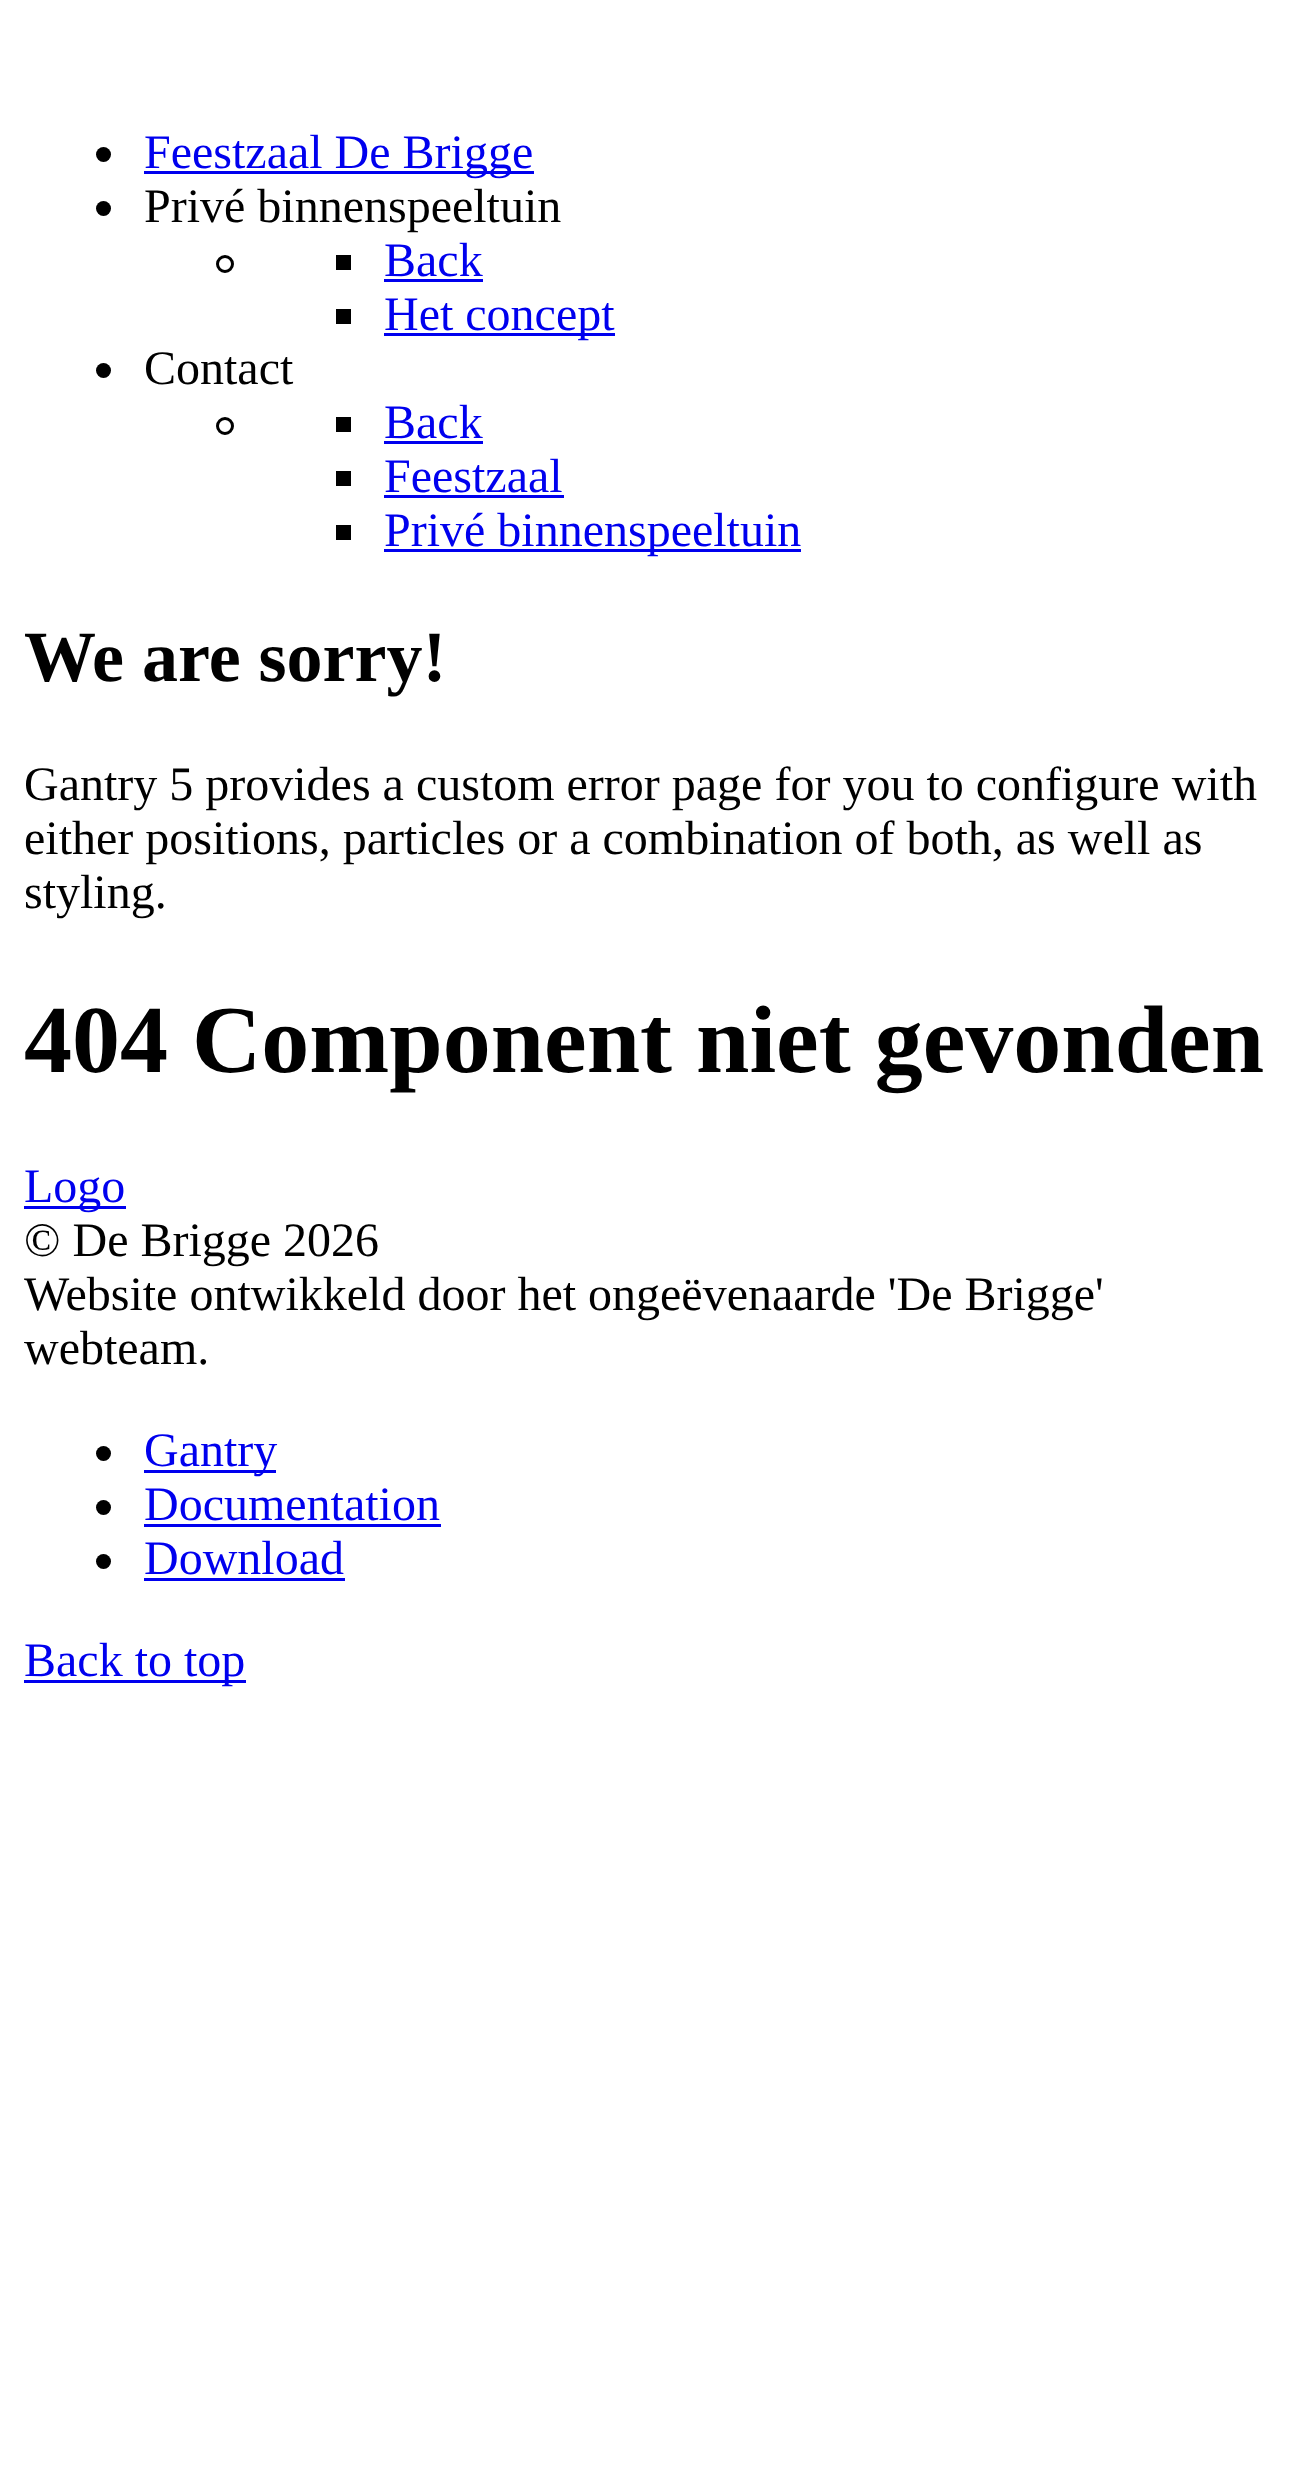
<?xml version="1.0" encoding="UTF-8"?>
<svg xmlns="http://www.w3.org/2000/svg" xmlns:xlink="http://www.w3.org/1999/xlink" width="1301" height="2474">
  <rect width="100%" height="100%" fill="#ffffff" />
  <circle cx="103.5" cy="154.5" r="7.5" fill="#000000" />
  <rect x="144" y="171" width="390" height="3" fill="#0000ee" />
  <circle cx="103.5" cy="208.5" r="7.5" fill="#000000" />
  <circle cx="225" cy="264" r="7.5" fill="none" stroke="#000000" stroke-width="3" />
  <rect x="336" y="255" width="15" height="15" fill="#000000" />
  <rect x="384" y="279" width="99" height="3" fill="#0000ee" />
  <rect x="336" y="309" width="15" height="15" fill="#000000" />
  <rect x="384" y="333" width="231" height="3" fill="#0000ee" />
  <circle cx="103.5" cy="370.5" r="7.5" fill="#000000" />
  <circle cx="225" cy="426" r="7.5" fill="none" stroke="#000000" stroke-width="3" />
  <rect x="336" y="417" width="15" height="15" fill="#000000" />
  <rect x="384" y="441" width="99" height="3" fill="#0000ee" />
  <rect x="336" y="471" width="15" height="15" fill="#000000" />
  <rect x="384" y="495" width="180" height="3" fill="#0000ee" />
  <rect x="336" y="525" width="15" height="15" fill="#000000" />
  <rect x="384" y="549" width="417" height="3" fill="#0000ee" />
  <rect x="24" y="1206" width="102" height="3" fill="#0000ee" />
  <circle cx="103.5" cy="1453.5" r="7.5" fill="#000000" />
  <rect x="144" y="1470" width="132" height="3" fill="#0000ee" />
  <circle cx="103.5" cy="1507.5" r="7.5" fill="#000000" />
  <rect x="144" y="1524" width="297" height="3" fill="#0000ee" />
  <circle cx="103.5" cy="1561.5" r="7.5" fill="#000000" />
  <rect x="144" y="1578" width="201" height="3" fill="#0000ee" />
  <rect x="24" y="1680" width="222" height="3" fill="#0000ee" />
  <text x="144" y="168" style="font-family: Liberation Serif; font-size: 48px; fill: #0000ee">Feestzaal De Brigge</text>
  <text x="144" y="222" style="font-family: Liberation Serif; font-size: 48px; fill: #000000">Privé binnenspeeltuin</text>
  <text x="384" y="276" style="font-family: Liberation Serif; font-size: 48px; fill: #0000ee">Back</text>
  <text x="384" y="330" style="font-family: Liberation Serif; font-size: 48px; fill: #0000ee">Het concept</text>
  <text x="144" y="384" style="font-family: Liberation Serif; font-size: 48px; fill: #000000">Contact</text>
  <text x="384" y="438" style="font-family: Liberation Serif; font-size: 48px; fill: #0000ee">Back</text>
  <text x="384" y="492" style="font-family: Liberation Serif; font-size: 48px; fill: #0000ee">Feestzaal</text>
  <text x="384" y="546" style="font-family: Liberation Serif; font-size: 48px; fill: #0000ee">Privé binnenspeeltuin</text>
  <text x="24" y="681" style="font-family: Liberation Serif; font-size: 72px; font-weight: bold; fill: #000000">We are sorry!</text>
  <text x="24" y="800" style="font-family: Liberation Serif; font-size: 48px; fill: #000000">Gantry 5 provides a custom error page for you to configure with</text>
  <text x="24" y="854" style="font-family: Liberation Serif; font-size: 48px; fill: #000000">either positions, particles or a combination of both, as well as</text>
  <text x="24" y="908" style="font-family: Liberation Serif; font-size: 48px; fill: #000000">styling.</text>
  <text x="24" y="1072" style="font-family: Liberation Serif; font-size: 96px; font-weight: bold; fill: #000000">404 Component niet gevonden</text>
  <text x="24" y="1202" style="font-family: Liberation Serif; font-size: 48px; fill: #0000ee">Logo</text>
  <text x="24" y="1256" style="font-family: Liberation Serif; font-size: 48px; fill: #000000">© De Brigge 2026</text>
  <text x="24" y="1310" style="font-family: Liberation Serif; font-size: 48px; fill: #000000">Website ontwikkeld door het ongeëvenaarde 'De Brigge'</text>
  <text x="24" y="1364" style="font-family: Liberation Serif; font-size: 48px; fill: #000000">webteam.</text>
  <text x="144" y="1466" style="font-family: Liberation Serif; font-size: 48px; fill: #0000ee">Gantry</text>
  <text x="144" y="1520" style="font-family: Liberation Serif; font-size: 48px; fill: #0000ee">Documentation</text>
  <text x="144" y="1574" style="font-family: Liberation Serif; font-size: 48px; fill: #0000ee">Download</text>
  <text x="24" y="1676" style="font-family: Liberation Serif; font-size: 48px; fill: #0000ee">Back to top</text>
</svg>
